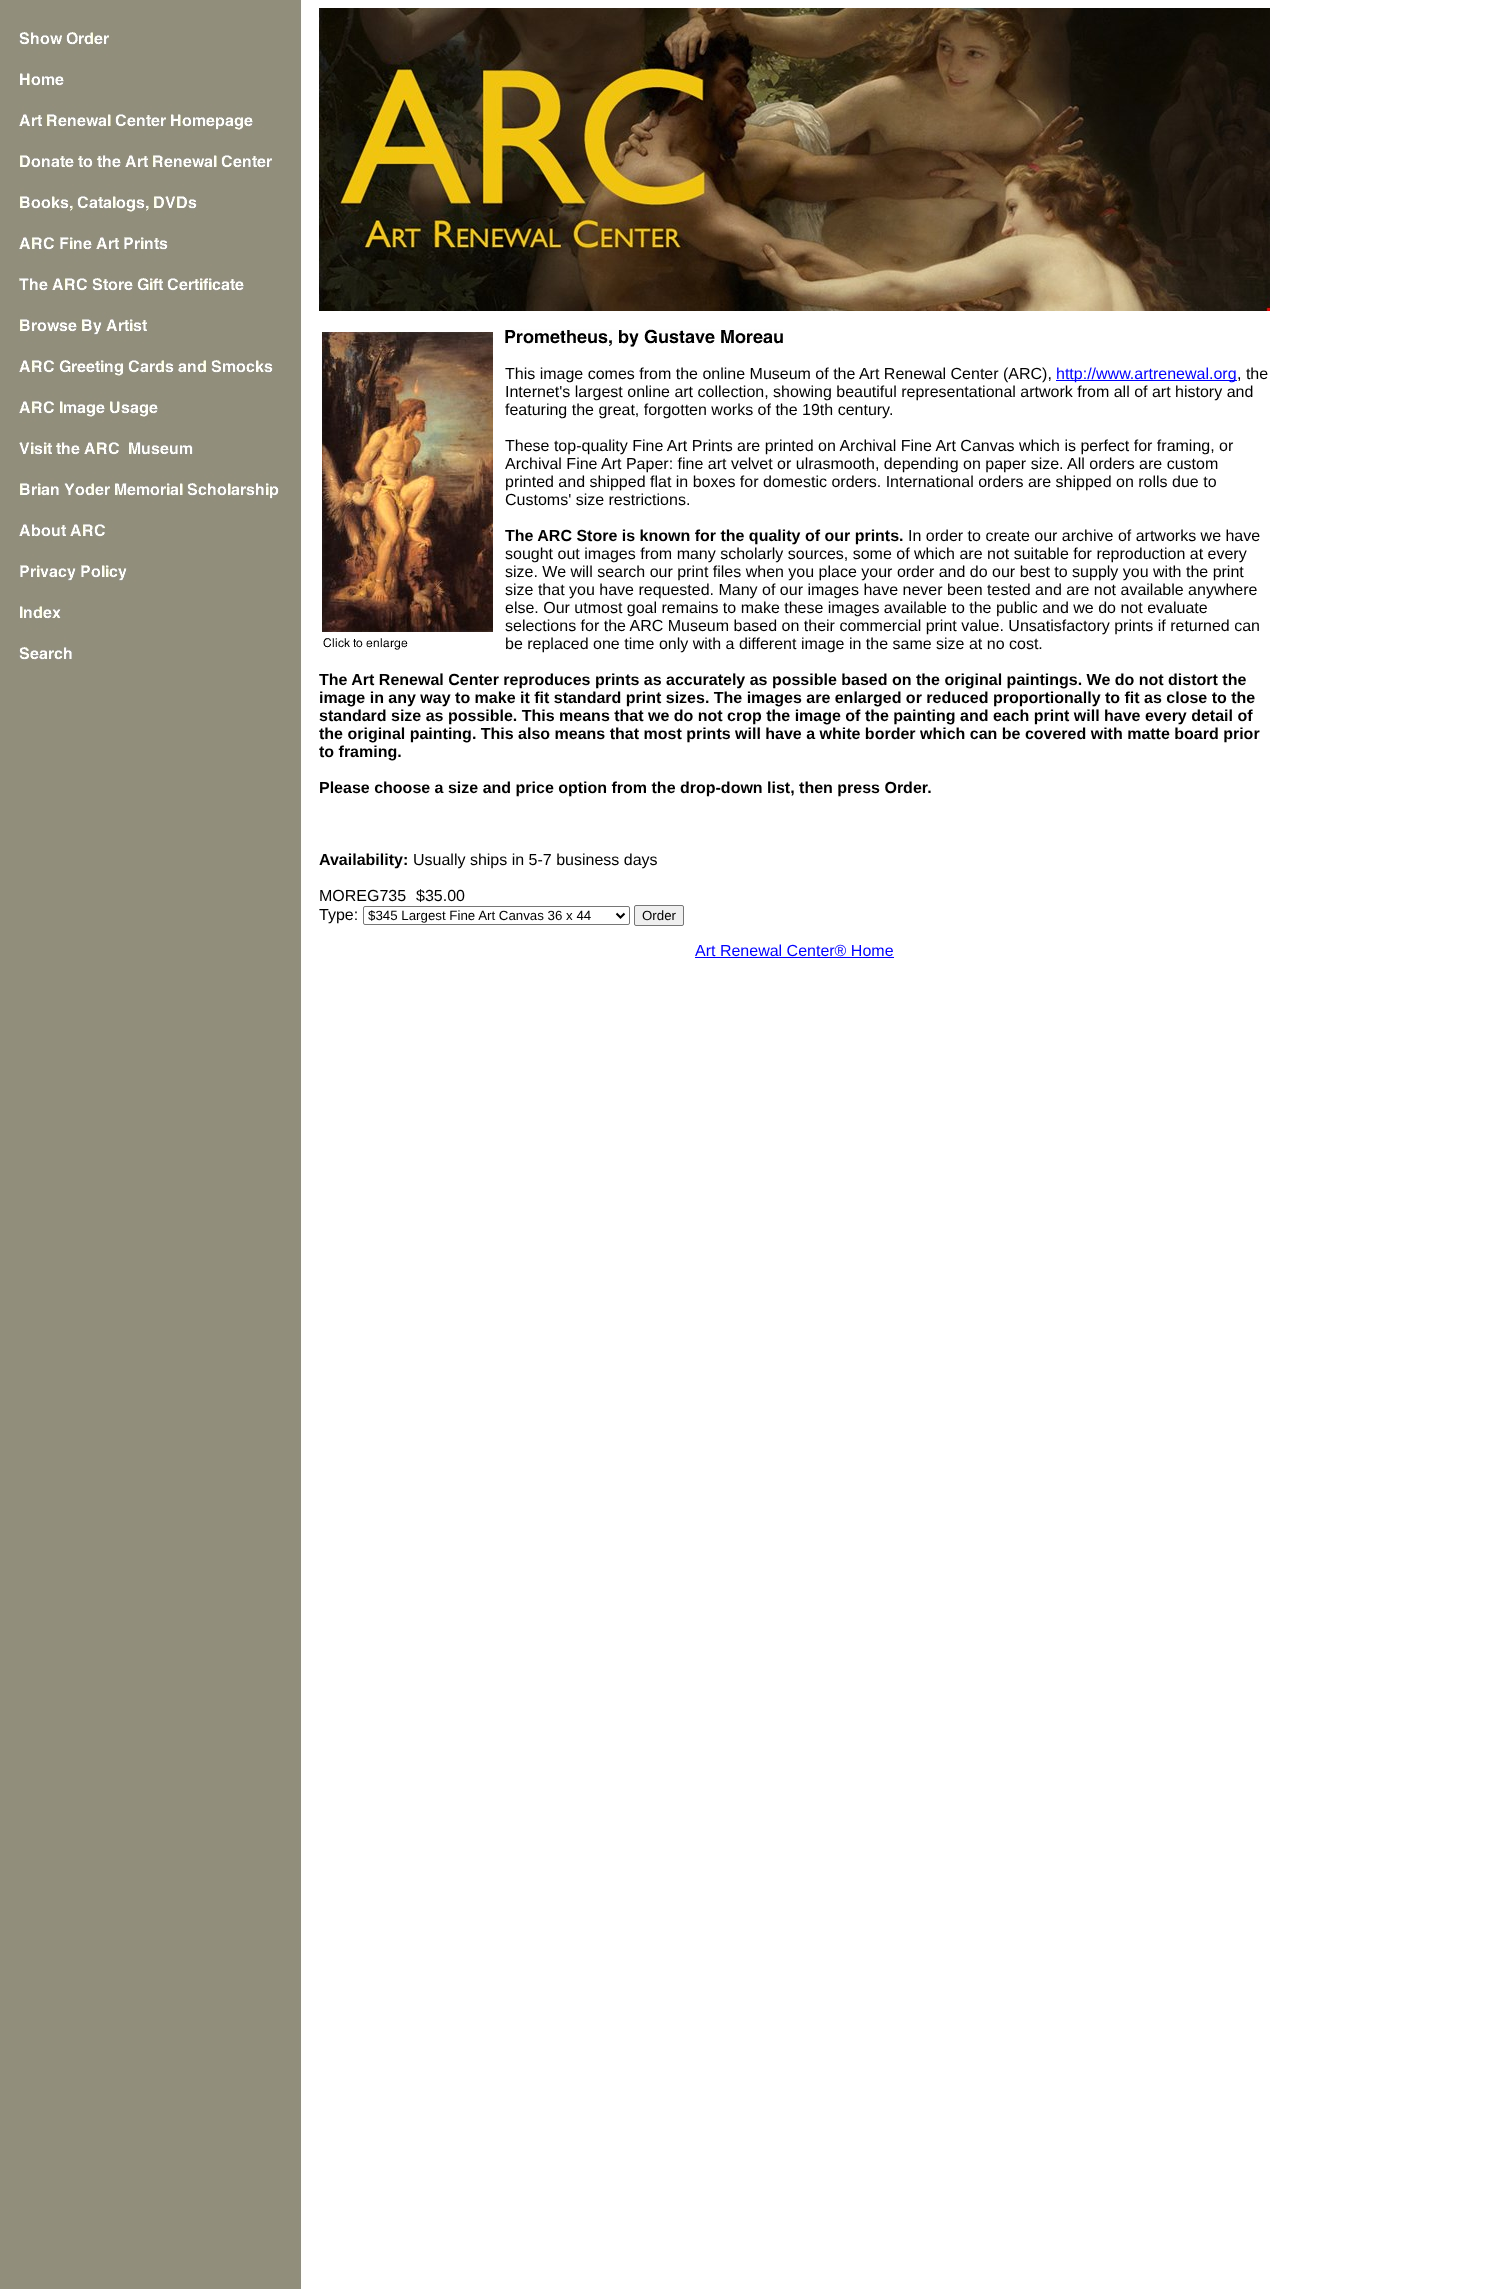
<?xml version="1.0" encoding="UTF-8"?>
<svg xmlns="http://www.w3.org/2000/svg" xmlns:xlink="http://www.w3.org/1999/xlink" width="1490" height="2289">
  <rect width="100%" height="100%" fill="#ffffff" />
  <image x="0" y="0" width="302" height="2289" xlink:href="image1.png" />
  <image x="18" y="32" width="262" height="629" xlink:href="image2.png" />
  <image x="319" y="8" width="951" height="303" xlink:href="image3.png" />
  <image x="322" y="332" width="171" height="300" xlink:href="image4.png" />
  <image x="323" y="638" width="85" height="12" xlink:href="image5.png" />
  <image x="505" y="329" width="278" height="18" xlink:href="image6.png" />
  <rect x="1056" y="380" width="181" height="1" fill="#0000ff" />
  <rect x="363.5" y="906.5" width="266" height="18" rx="1.5" fill="none" stroke="#767676" />
  <path d="M 616.5 913.5 l 4 4 l 4 -4" fill="none" stroke="#000000" stroke-width="2" />
  <rect x="634.5" y="905.5" width="49" height="20" rx="1.5" fill="#efefef" stroke="#767676" />
  <rect x="695" y="957" width="199" height="1" fill="#0000ff" />
  <text x="505" y="379" style="font-family: Liberation Sans; font-size: 16px; fill: #000000">This image comes from the online Museum of the Art Renewal Center (ARC),</text>
  <text x="1056" y="379" style="font-family: Liberation Sans; font-size: 16px; fill: #0000ff">http://www.artrenewal.org</text>
  <text x="1237" y="379" style="font-family: Liberation Sans; font-size: 16px; fill: #000000">, the</text>
  <text x="505" y="397" style="font-family: Liberation Sans; font-size: 16px; fill: #000000">Internet's largest online art collection, showing beautiful representational artwork from all of art history and</text>
  <text x="505" y="415" style="font-family: Liberation Sans; font-size: 16px; fill: #000000">featuring the great, forgotten works of the 19th century.</text>
  <text x="505" y="451" style="font-family: Liberation Sans; font-size: 16px; fill: #000000">These top-quality Fine Art Prints are printed on Archival Fine Art Canvas which is perfect for framing, or</text>
  <text x="505" y="469" style="font-family: Liberation Sans; font-size: 16px; fill: #000000">Archival Fine Art Paper: fine art velvet or ulrasmooth, depending on paper size. All orders are custom</text>
  <text x="505" y="487" style="font-family: Liberation Sans; font-size: 16px; fill: #000000">printed and shipped flat in boxes for domestic orders. International orders are shipped on rolls due to</text>
  <text x="505" y="505" style="font-family: Liberation Sans; font-size: 16px; fill: #000000">Customs' size restrictions.</text>
  <text x="505" y="541" style="font-family: Liberation Sans; font-size: 16px; font-weight: bold; fill: #000000">The ARC Store is known for the quality of our prints.</text>
  <text x="908" y="541" style="font-family: Liberation Sans; font-size: 16px; fill: #000000">In order to create our archive of artworks we have</text>
  <text x="505" y="559" style="font-family: Liberation Sans; font-size: 16px; fill: #000000">sought out images from many scholarly sources, some of which are not suitable for reproduction at every</text>
  <text x="505" y="577" style="font-family: Liberation Sans; font-size: 16px; fill: #000000">size. We will search our print files when you place your order and do our best to supply you with the print</text>
  <text x="505" y="595" style="font-family: Liberation Sans; font-size: 16px; fill: #000000">size that you have requested. Many of our images have never been tested and are not available anywhere</text>
  <text x="505" y="613" style="font-family: Liberation Sans; font-size: 16px; fill: #000000">else. Our utmost goal remains to make these images available to the public and we do not evaluate</text>
  <text x="505" y="631" style="font-family: Liberation Sans; font-size: 16px; fill: #000000">selections for the ARC Museum based on their commercial print value. Unsatisfactory prints if returned can</text>
  <text x="505" y="649" style="font-family: Liberation Sans; font-size: 16px; fill: #000000">be replaced one time only with a different image in the same size at no cost.</text>
  <text x="319" y="685" style="font-family: Liberation Sans; font-size: 16px; font-weight: bold; fill: #000000">The Art Renewal Center reproduces prints as accurately as possible based on the original paintings. We do not distort the</text>
  <text x="319" y="703" style="font-family: Liberation Sans; font-size: 16px; font-weight: bold; fill: #000000">image in any way to make it fit standard print sizes. The images are enlarged or reduced proportionally to fit as close to the</text>
  <text x="319" y="721" style="font-family: Liberation Sans; font-size: 16px; font-weight: bold; fill: #000000">standard size as possible. This means that we do not crop the image of the painting and each print will have every detail of</text>
  <text x="319" y="739" style="font-family: Liberation Sans; font-size: 16px; font-weight: bold; fill: #000000">the original painting. This also means that most prints will have a white border which can be covered with matte board prior</text>
  <text x="319" y="757" style="font-family: Liberation Sans; font-size: 16px; font-weight: bold; fill: #000000">to framing.</text>
  <text x="319" y="793" style="font-family: Liberation Sans; font-size: 16px; font-weight: bold; fill: #000000">Please choose a size and price option from the drop-down list, then press Order.</text>
  <text x="319" y="865" style="font-family: Liberation Sans; font-size: 16px; font-weight: bold; fill: #000000">Availability:</text>
  <text x="413" y="865" style="font-family: Liberation Sans; font-size: 16px; fill: #000000">Usually ships in 5-7 business days</text>
  <text x="319" y="901" style="font-family: Liberation Sans; font-size: 16px; fill: #000000">MOREG735</text>
  <text x="416" y="901" style="font-family: Liberation Sans; font-size: 16px; fill: #000000">$35.00</text>
  <text x="319" y="920" style="font-family: Liberation Sans; font-size: 16px; fill: #000000">Type:</text>
  <text x="368" y="920" style="font-family: Liberation Sans; font-size: 13.3px; fill: #000000">$345 Largest Fine Art Canvas 36 x 44</text>
  <text x="642" y="920" style="font-family: Liberation Sans; font-size: 13.3px; fill: #000000">Order</text>
  <text x="695" y="956" style="font-family: Liberation Sans; font-size: 16px; fill: #0000ff">Art Renewal Center® Home</text>
</svg>
